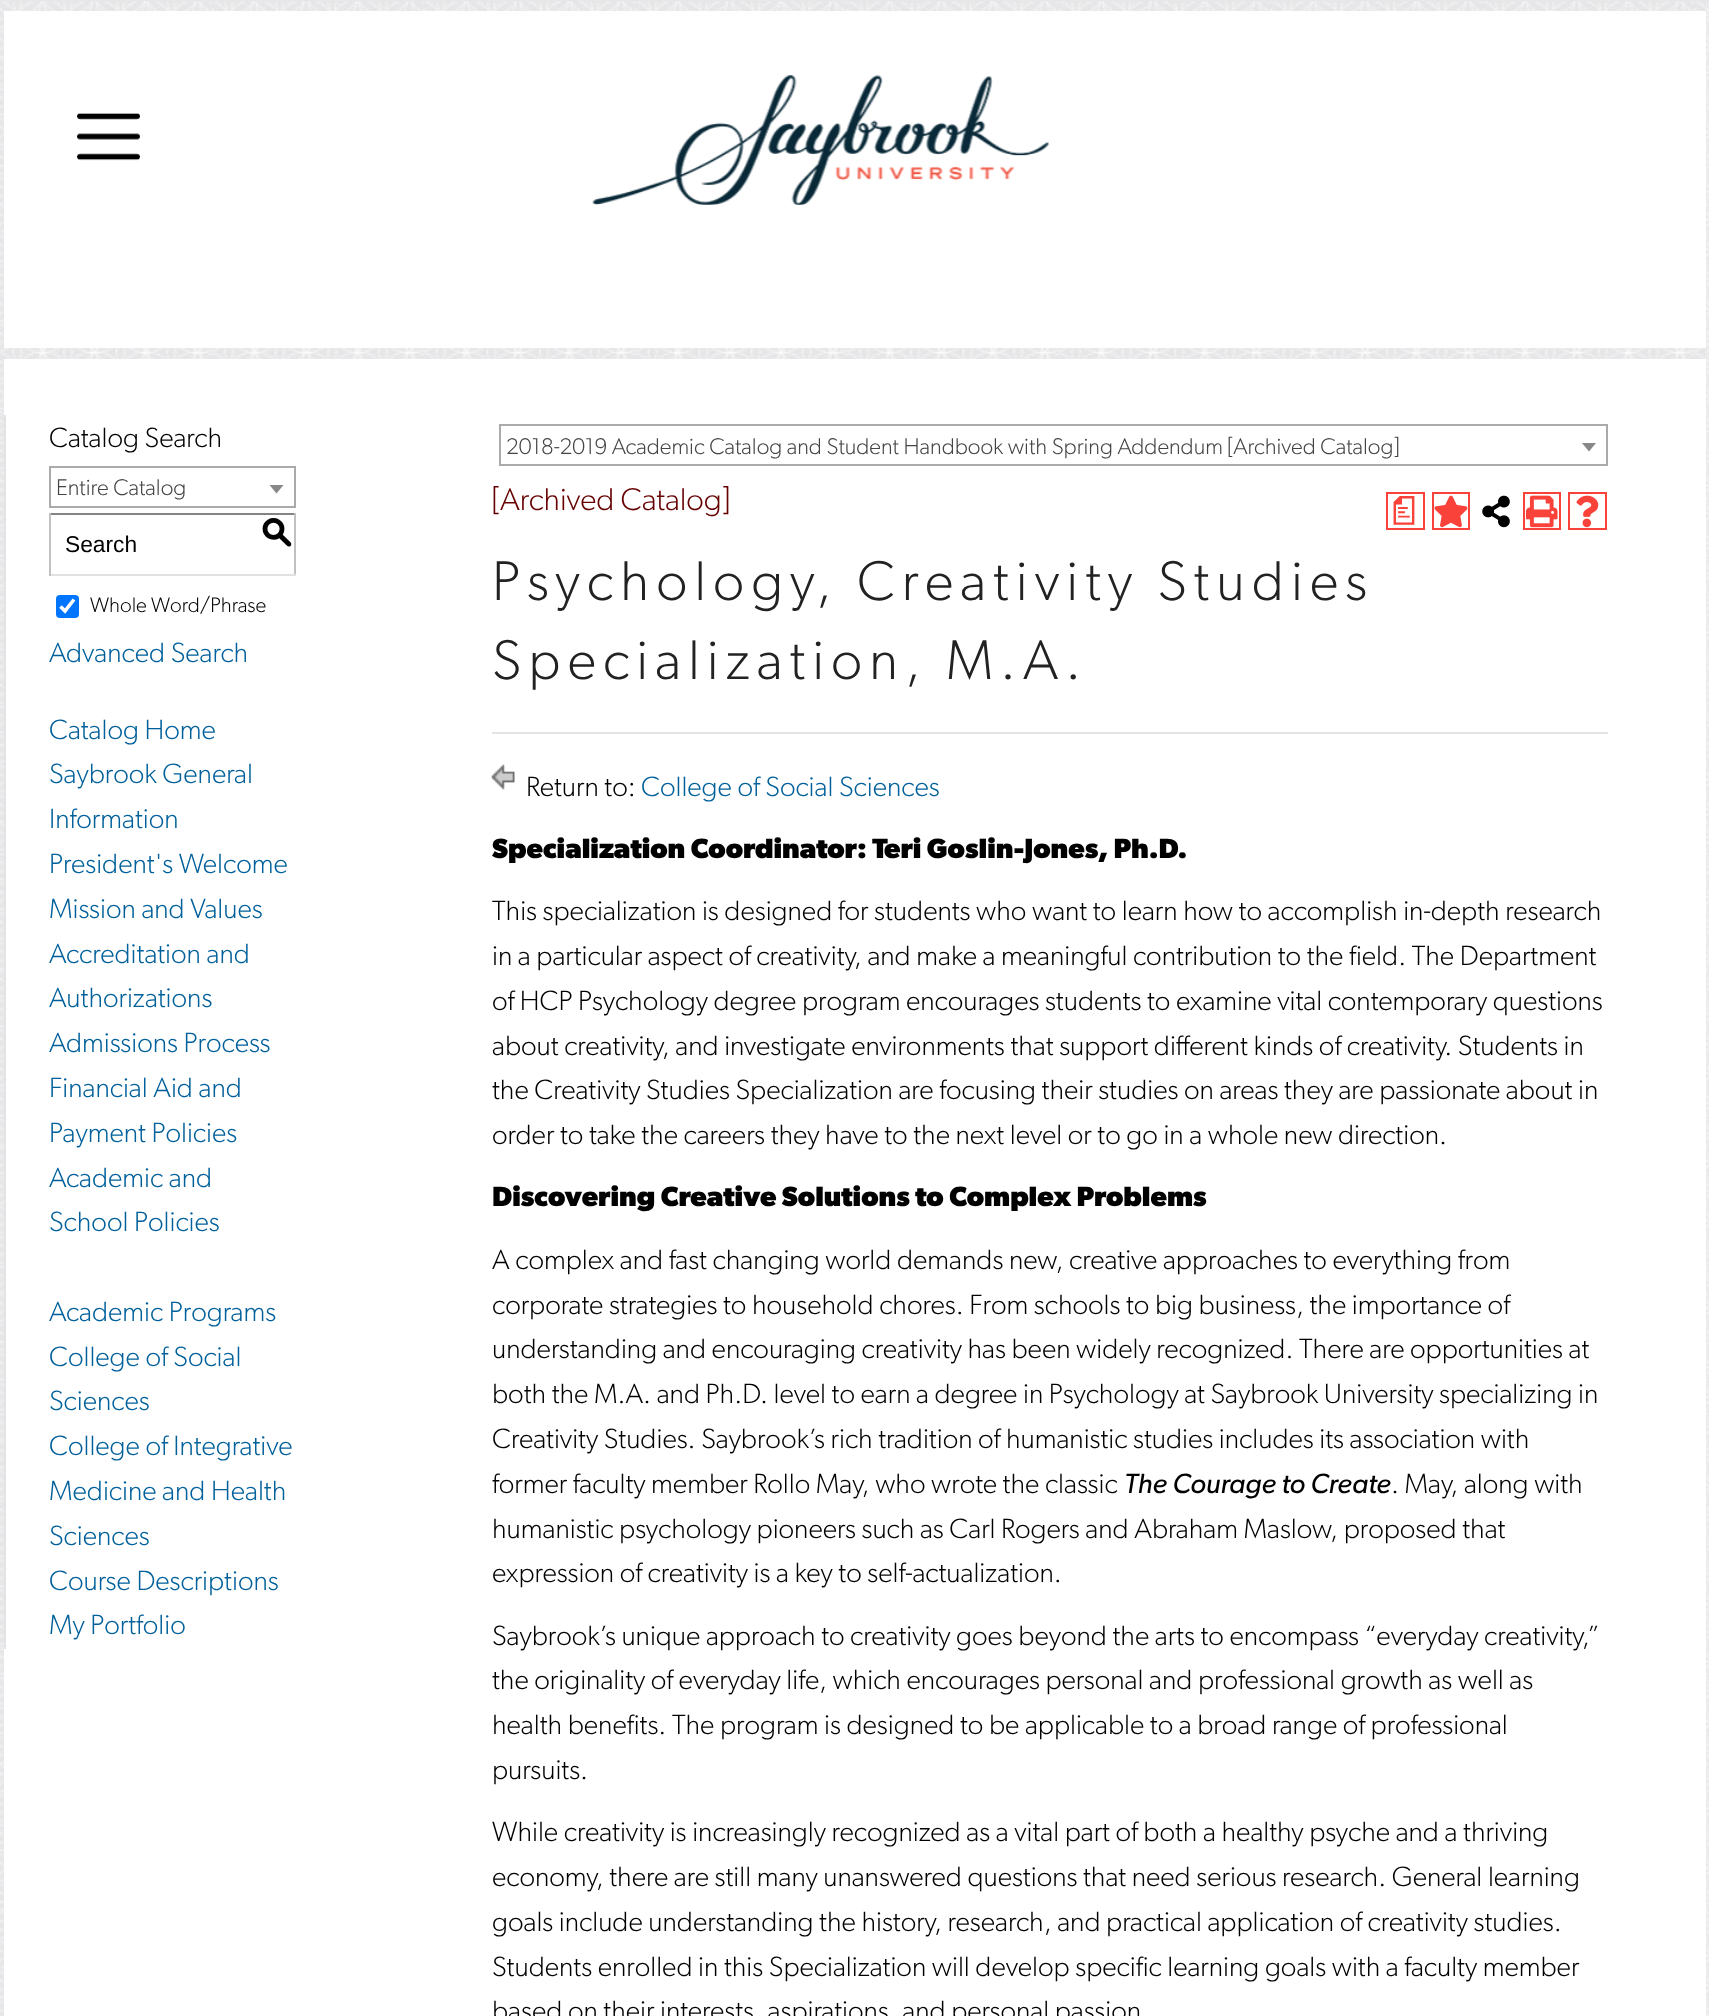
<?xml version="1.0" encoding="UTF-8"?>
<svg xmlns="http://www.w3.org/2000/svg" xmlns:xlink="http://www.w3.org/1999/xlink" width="1709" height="2016">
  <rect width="100%" height="100%" fill="#e6e7e8" />
  <image x="0" y="1" width="1709" height="2015" xlink:href="image1.png" />
  <rect x="4" y="11" width="1702" height="337" fill="#ffffff" />
  <image x="77" y="113" width="63" height="48" xlink:href="image2.png" />
  <image x="592" y="75" width="457" height="130" xlink:href="image3.png" />
  <rect x="4" y="359" width="1702" height="1657" fill="#ffffff" />
  <rect x="4" y="415" width="2" height="1234" fill="#e3e3e3" />
  <rect x="50" y="467" width="245" height="40" fill="none" stroke="#aaaaaa" stroke-width="2" />
  <path d="M 269.5 485 h 14 l -7 8.5 z" fill="#888888" />
  <rect x="49" y="513" width="247" height="2" fill="#848484" />
  <rect x="294" y="513" width="2" height="63" fill="#c1c1c1" />
  <rect x="49" y="574" width="247" height="2" fill="#e1e1e1" />
  <rect x="49" y="513" width="2" height="63" fill="#c1c1c1" />
  <rect x="56" y="595" width="23" height="23" rx="4" fill="#0075ff" />
  <path d="M 60.5 606.5 l 4.5 4.5 l 9 -11.5" fill="none" stroke="#ffffff" stroke-width="3.6" />
  <rect x="1387" y="493" width="37" height="36" fill="none" stroke="#f9423a" stroke-width="2" />
  <rect x="1433" y="493" width="36" height="36" fill="none" stroke="#f9423a" stroke-width="2" />
  <image x="1434" y="495" width="34" height="33" xlink:href="image4.png" />
  <image x="1482" y="495" width="28" height="33" xlink:href="image5.png" />
  <rect x="1524" y="493" width="36" height="36" fill="none" stroke="#f9423a" stroke-width="2" />
  <image x="1526" y="495" width="32" height="33" xlink:href="image6.png" />
  <rect x="1569" y="493" width="37" height="36" fill="none" stroke="#f9423a" stroke-width="2" />
  <image x="1576" y="495" width="23" height="33" xlink:href="image7.png" />
  <rect x="492" y="732" width="1116" height="2" fill="#e3e3e3" />
  <image x="491" y="764" width="24" height="26" xlink:href="image8.png" />
  <rect x="500" y="425" width="1107" height="40" fill="none" stroke="#aaaaaa" stroke-width="2" />
  <path d="M 1582 443 h 14 l -7 8.5 z" fill="#888888" />
  <text x="49" y="447" style="font-family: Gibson; font-size: 28px; font-weight: 300; fill: #000000">Catalog Search</text>
  <text x="56" y="495" style="font-family: Gibson; font-size: 22.75px; font-weight: 300; fill: #444444">Entire Catalog</text>
  <text x="65" y="552" style="font-family: Liberation Sans; font-size: 22.75px; fill: #000000">Search</text>
  <text x="261" y="542" style="font-family: 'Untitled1'; font-size: 31.5px; font-weight: 500; fill: #000000">S</text>
  <text x="90" y="612" style="font-family: Gibson; font-size: 21px; font-weight: 300; fill: #000000">Whole Word/Phrase</text>
  <text x="49" y="662" style="font-family: Gibson; font-size: 28px; font-weight: 300; fill: #00609b">Advanced Search</text>
  <text x="49" y="739" style="font-family: Gibson; font-size: 28px; font-weight: 300; fill: #00609b">Catalog Home</text>
  <text x="49" y="783" style="font-family: Gibson; font-size: 28px; font-weight: 300; fill: #00609b">Saybrook General</text>
  <text x="49" y="828" style="font-family: Gibson; font-size: 28px; font-weight: 300; fill: #00609b">Information</text>
  <text x="49" y="873" style="font-family: Gibson; font-size: 28px; font-weight: 300; fill: #00609b">President's Welcome</text>
  <text x="49" y="918" style="font-family: Gibson; font-size: 28px; font-weight: 300; fill: #00609b">Mission and Values</text>
  <text x="49" y="963" style="font-family: Gibson; font-size: 28px; font-weight: 300; fill: #00609b">Accreditation and</text>
  <text x="49" y="1007" style="font-family: Gibson; font-size: 28px; font-weight: 300; fill: #00609b">Authorizations</text>
  <text x="49" y="1052" style="font-family: Gibson; font-size: 28px; font-weight: 300; fill: #00609b">Admissions Process</text>
  <text x="49" y="1097" style="font-family: Gibson; font-size: 28px; font-weight: 300; fill: #00609b">Financial Aid and</text>
  <text x="49" y="1142" style="font-family: Gibson; font-size: 28px; font-weight: 300; fill: #00609b">Payment Policies</text>
  <text x="49" y="1187" style="font-family: Gibson; font-size: 28px; font-weight: 300; fill: #00609b">Academic and</text>
  <text x="49" y="1231" style="font-family: Gibson; font-size: 28px; font-weight: 300; fill: #00609b">School Policies</text>
  <text x="49" y="1321" style="font-family: Gibson; font-size: 28px; font-weight: 300; fill: #00609b">Academic Programs</text>
  <text x="49" y="1366" style="font-family: Gibson; font-size: 28px; font-weight: 300; fill: #00609b">College of Social</text>
  <text x="49" y="1410" style="font-family: Gibson; font-size: 28px; font-weight: 300; fill: #00609b">Sciences</text>
  <text x="49" y="1455" style="font-family: Gibson; font-size: 28px; font-weight: 300; fill: #00609b">College of Integrative</text>
  <text x="49" y="1500" style="font-family: Gibson; font-size: 28px; font-weight: 300; fill: #00609b">Medicine and Health</text>
  <text x="49" y="1545" style="font-family: Gibson; font-size: 28px; font-weight: 300; fill: #00609b">Sciences</text>
  <text x="49" y="1590" style="font-family: Gibson; font-size: 28px; font-weight: 300; fill: #00609b">Course Descriptions</text>
  <text x="49" y="1634" style="font-family: Gibson; font-size: 28px; font-weight: 300; fill: #00609b">My Portfolio</text>
  <text x="492" y="510" style="font-family: Gibson; font-size: 31.5px; font-weight: 300; fill: #660000">[Archived Catalog]</text>
  <text x="1388" y="520" style="font-family: 'Untitled1'; font-size: 31.5px; font-weight: 500; fill: #f9423a">a</text>
  <text x="492" y="600" style="font-family: Gibson; font-size: 56px; font-weight: 300; letter-spacing: 7px; fill: #222222">Psychology, Creativity Studies</text>
  <text x="492" y="679" style="font-family: Gibson; font-size: 56px; font-weight: 300; letter-spacing: 7px; fill: #222222">Specialization, M.A.</text>
  <text x="526" y="796" style="font-family: Gibson; font-size: 28px; font-weight: 300; fill: #000000">Return to:</text>
  <text x="641" y="796" style="font-family: Gibson; font-size: 28px; font-weight: 300; fill: #00609b">College of Social Sciences</text>
  <text x="492" y="858" style="font-family: Gibson; font-size: 28px; font-weight: bold; fill: #000000">Specialization Coordinator: Teri Goslin-Jones, Ph.D.</text>
  <text x="492" y="920" style="font-family: Gibson; font-size: 28px; font-weight: 300; fill: #000000">This specialization is designed for students who want to learn how to accomplish in-depth research</text>
  <text x="492" y="965" style="font-family: Gibson; font-size: 28px; font-weight: 300; fill: #000000">in a particular aspect of creativity, and make a meaningful contribution to the field. The Department</text>
  <text x="492" y="1010" style="font-family: Gibson; font-size: 28px; font-weight: 300; fill: #000000">of HCP Psychology degree program encourages students to examine vital contemporary questions</text>
  <text x="492" y="1055" style="font-family: Gibson; font-size: 28px; font-weight: 300; fill: #000000">about creativity, and investigate environments that support different kinds of creativity. Students in</text>
  <text x="492" y="1099" style="font-family: Gibson; font-size: 28px; font-weight: 300; fill: #000000">the Creativity Studies Specialization are focusing their studies on areas they are passionate about in</text>
  <text x="492" y="1144" style="font-family: Gibson; font-size: 28px; font-weight: 300; fill: #000000">order to take the careers they have to the next level or to go in a whole new direction.</text>
  <text x="492" y="1206" style="font-family: Gibson; font-size: 28px; font-weight: bold; fill: #000000">Discovering Creative Solutions to Complex Problems</text>
  <text x="492" y="1269" style="font-family: Gibson; font-size: 28px; font-weight: 300; fill: #000000">A complex and fast changing world demands new, creative approaches to everything from</text>
  <text x="492" y="1314" style="font-family: Gibson; font-size: 28px; font-weight: 300; fill: #000000">corporate strategies to household chores. From schools to big business, the importance of</text>
  <text x="492" y="1358" style="font-family: Gibson; font-size: 28px; font-weight: 300; fill: #000000">understanding and encouraging creativity has been widely recognized. There are opportunities at</text>
  <text x="492" y="1403" style="font-family: Gibson; font-size: 28px; font-weight: 300; fill: #000000">both the M.A. and Ph.D. level to earn a degree in Psychology at Saybrook University specializing in</text>
  <text x="492" y="1448" style="font-family: Gibson; font-size: 28px; font-weight: 300; fill: #000000">Creativity Studies. Saybrook’s rich tradition of humanistic studies includes its association with</text>
  <text x="492" y="1493" style="font-family: Gibson; font-size: 28px; font-weight: 300; fill: #000000">former faculty member Rollo May, who wrote the classic</text>
  <text x="1124" y="1493" style="font-family: Gibson; font-size: 28px; font-style: italic; fill: #000000">The Courage to Create</text>
  <text x="1391" y="1493" style="font-family: Gibson; font-size: 28px; font-weight: 300; fill: #000000">. May, along with</text>
  <text x="492" y="1538" style="font-family: Gibson; font-size: 28px; font-weight: 300; fill: #000000">humanistic psychology pioneers such as Carl Rogers and Abraham Maslow, proposed that</text>
  <text x="492" y="1582" style="font-family: Gibson; font-size: 28px; font-weight: 300; fill: #000000">expression of creativity is a key to self-actualization.</text>
  <text x="492" y="1645" style="font-family: Gibson; font-size: 28px; font-weight: 300; fill: #000000">Saybrook’s unique approach to creativity goes beyond the arts to encompass “everyday creativity,”</text>
  <text x="492" y="1689" style="font-family: Gibson; font-size: 28px; font-weight: 300; fill: #000000">the originality of everyday life, which encourages personal and professional growth as well as</text>
  <text x="492" y="1734" style="font-family: Gibson; font-size: 28px; font-weight: 300; fill: #000000">health benefits. The program is designed to be applicable to a broad range of professional</text>
  <text x="492" y="1779" style="font-family: Gibson; font-size: 28px; font-weight: 300; fill: #000000">pursuits.</text>
  <text x="492" y="1841" style="font-family: Gibson; font-size: 28px; font-weight: 300; fill: #000000">While creativity is increasingly recognized as a vital part of both a healthy psyche and a thriving</text>
  <text x="492" y="1886" style="font-family: Gibson; font-size: 28px; font-weight: 300; fill: #000000">economy, there are still many unanswered questions that need serious research. General learning</text>
  <text x="492" y="1931" style="font-family: Gibson; font-size: 28px; font-weight: 300; fill: #000000">goals include understanding the history, research, and practical application of creativity studies.</text>
  <text x="492" y="1976" style="font-family: Gibson; font-size: 28px; font-weight: 300; fill: #000000">Students enrolled in this Specialization will develop specific learning goals with a faculty member</text>
  <text x="492" y="2020" style="font-family: Gibson; font-size: 28px; font-weight: 300; fill: #000000">based on their interests, aspirations, and personal passion</text>
  <text x="506" y="454" style="font-family: Gibson; font-size: 22.75px; font-weight: 300; fill: #444444">2018-2019 Academic Catalog and Student Handbook with Spring Addendum [Archived Catalog]</text>
</svg>
